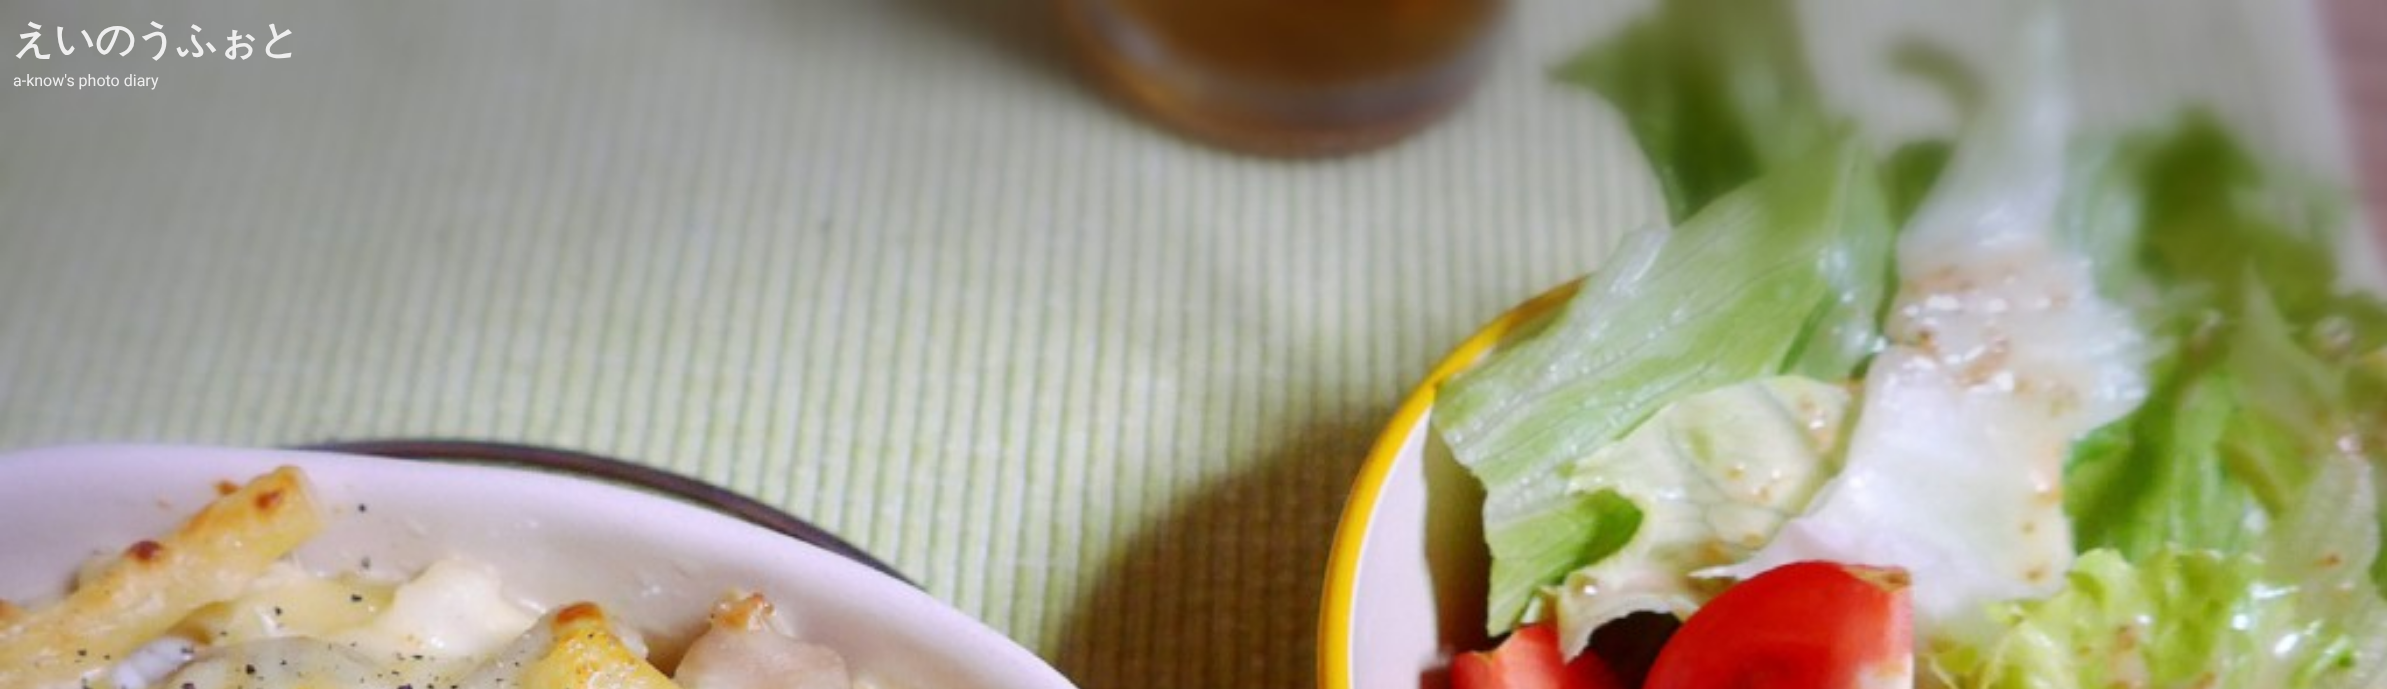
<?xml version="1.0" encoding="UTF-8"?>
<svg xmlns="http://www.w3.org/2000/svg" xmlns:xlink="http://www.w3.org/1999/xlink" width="2387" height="689">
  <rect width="100%" height="100%" fill="#ffffff" />
  <image x="0" y="0" width="2387" height="689" xlink:href="image1.png" />
  <text x="13" y="53" style="font-family: WenQuanYi Zen Hei; font-size: 40px; font-weight: bold; fill: #eeeeee">えいのうふぉと</text>
  <text x="13" y="86" style="font-family: Roboto; font-size: 16px; fill: #eeeeee">a-know's photo diary</text>
</svg>
